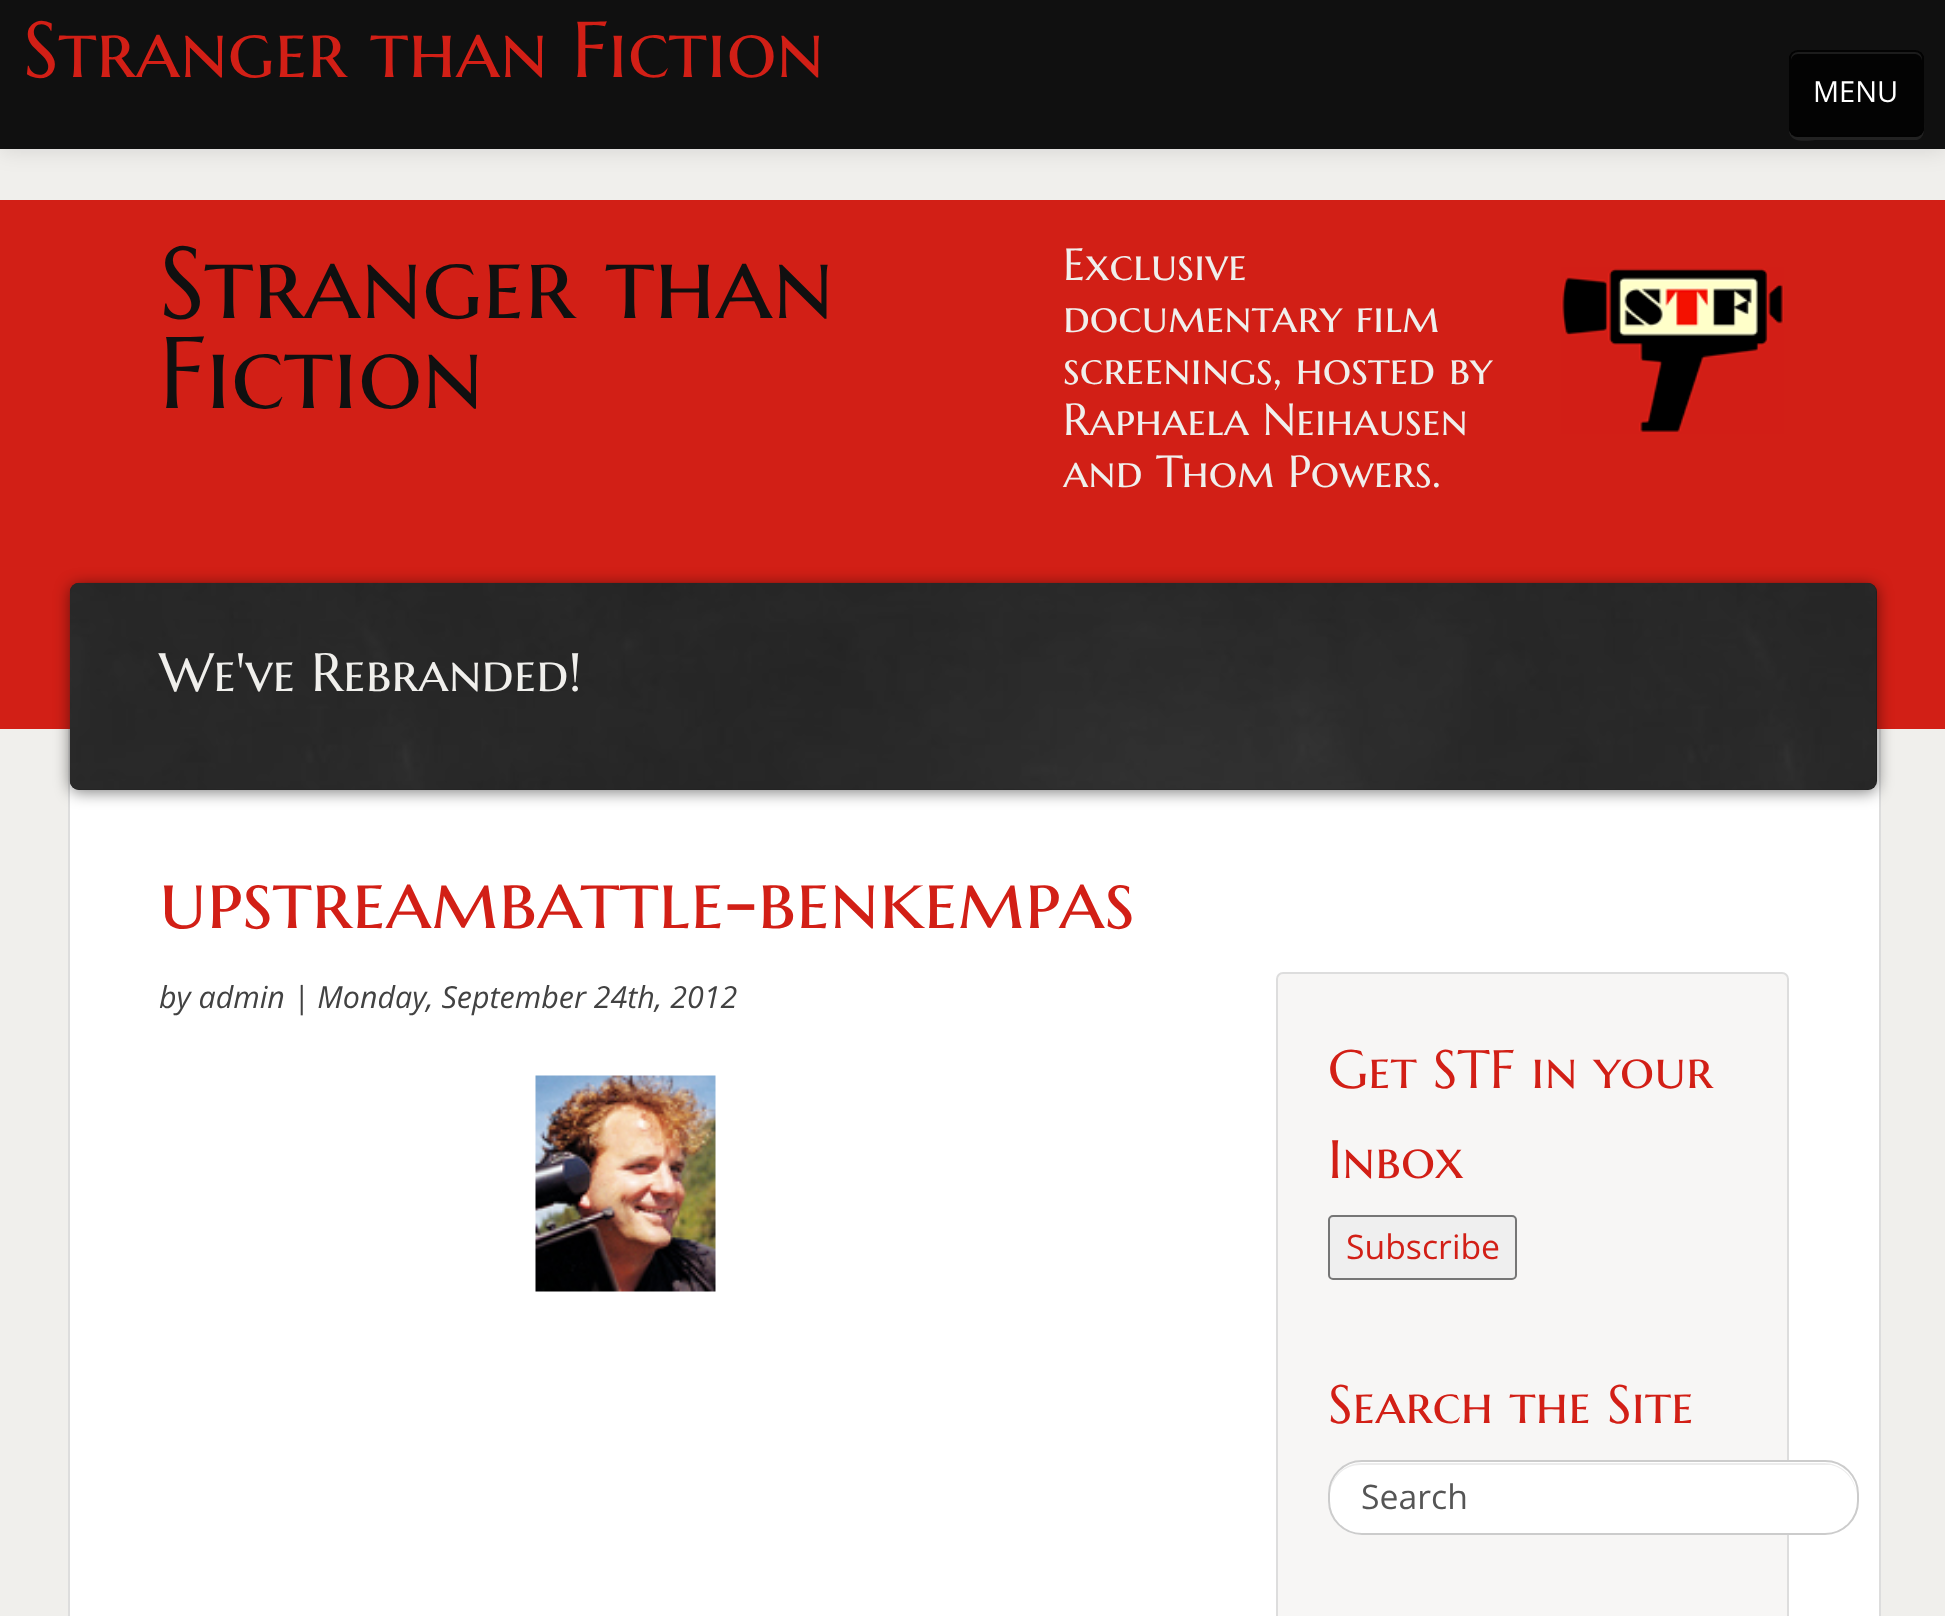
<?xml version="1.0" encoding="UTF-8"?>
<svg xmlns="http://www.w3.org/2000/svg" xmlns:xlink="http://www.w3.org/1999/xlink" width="1945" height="1616">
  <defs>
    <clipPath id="clip1"><rect x="1789" y="50" width="135" height="87" rx="9" /></clipPath>
  </defs>
  <rect width="100%" height="100%" fill="#f0efec" />
  <rect y="2" width="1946" height="149" fill="#000000" fill-opacity="0.1" filter="blur(11px)" />
  <rect width="1945" height="149" fill="#101010" />
  <path d="M 1789 130 c 0 15 21 10 29 10 h 99 c 9 -2 7 -14 7 -21 v -60 v 69 c 0 5 -4 9 -9 9 h -117 c -4 0 -8 -3 -9 -7 z" fill="#222222" />
  <rect x="1789" y="50" width="135" height="87" rx="9" fill="#030303" />
  <g clip-path="url(#clip1)">
    <rect x="1789" y="52" width="135" height="83" fill="#030303" />
  </g>
  <path d="M 1798 54 h 117 c 3 0 7 3 7 7 v -2 c 0 -4 -3 -7 -7 -7 h -117 c -4 0 -7 3 -7 7 v 2 c 0 -4 3 -7 7 -7 z" fill="#1c1c1c" />
  <path d="M 1920.5 134 c -1.5 1.5 -3.5 2 -5.5 2 h -117 c -2.5 0 -4.5 -0.5 -6 -2" fill="none" stroke="#000000" stroke-opacity="0.25" stroke-width="2.2" />
  <rect y="200" width="1945" height="529" fill="#d21f16" />
  <image x="1561" y="267" width="223" height="167" xlink:href="image1.png" />
  <rect x="70" y="729" width="1809" height="887" fill="#ffffff" />
  <rect x="1879" y="729" width="2" height="887" fill="#dddddd" />
  <rect x="68" y="729" width="2" height="887" fill="#dddddd" />
  <rect x="70" y="585" width="1807" height="207" rx="9" fill="#000000" fill-opacity="0.51" filter="blur(8px)" />
  <rect x="70" y="583" width="1807" height="207" rx="9" fill="#202020" />
  <image x="69" y="582" width="1807" height="208" xlink:href="image2.png" />
  <image x="535" y="1075" width="181" height="217" xlink:href="image3.png" />
  <rect x="1277" y="973" width="511" height="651" rx="6" fill="#f7f6f5" stroke="#dddddd" stroke-width="2" />
  <rect x="1329" y="1216" width="187" height="63" rx="4" fill="#efefef" stroke="#767676" stroke-width="2" />
  <rect x="1328" y="1460" width="531" height="75" rx="34" fill="#ffffff" />
  <path d="M 1361 1465 h 470 c 14 3 22 14 25 26 c -2 -16 -16 -28 -32 -28 h -462 c -17 0 -31 13 -32 29 c 3 -14 13 -27 31 -27 z" fill="#ececec" />
  <rect x="1329" y="1461" width="529" height="73" rx="33" fill="none" stroke="#cccccc" stroke-width="2" />
  <text x="23" y="77" style="font-family: Marcellus SC; font-size: 78.75px; fill: #d21f16">Stranger than Fiction</text>
  <text x="1813" y="102" style="font-family: Open Sans; font-size: 29px; fill: #ffffff">MENU</text>
  <text x="159" y="318" style="font-family: Marcellus SC; font-size: 101.25px; fill: #101010">Stranger than</text>
  <text x="159" y="408" style="font-family: Marcellus SC; font-size: 101.25px; fill: #101010">Fiction</text>
  <text x="1063" y="280" style="font-family: Marcellus SC; font-size: 45px; fill: #f0efec">Exclusive</text>
  <text x="1063" y="332" style="font-family: Marcellus SC; font-size: 45px; fill: #f0efec">documentary film</text>
  <text x="1063" y="384" style="font-family: Marcellus SC; font-size: 45px; fill: #f0efec">screenings, hosted by</text>
  <text x="1063" y="435" style="font-family: Marcellus SC; font-size: 45px; fill: #f0efec">Raphaela Neihausen</text>
  <text x="1063" y="487" style="font-family: Marcellus SC; font-size: 45px; fill: #f0efec">and Thom Powers.</text>
  <text x="159" y="691" style="font-family: Marcellus SC; font-size: 54px; fill: #f0efec">We've Rebranded!</text>
  <text x="159" y="928" style="font-family: Marcellus SC; font-size: 81px; fill: #d21f16">upstreambattle-benkempas</text>
  <text x="159" y="1008" style="font-family: Open Sans; font-size: 30.4px; font-style: italic; fill: #424242">by admin | Monday, September 24th, 2012</text>
  <text x="1328" y="1088" style="font-family: Marcellus SC; font-size: 54px; fill: #d21f16">Get STF in your</text>
  <text x="1328" y="1178" style="font-family: Marcellus SC; font-size: 54px; fill: #d21f16">Inbox</text>
  <text x="1346" y="1259" style="font-family: Open Sans; font-size: 33.75px; fill: #d21f16">Subscribe</text>
  <text x="1328" y="1423" style="font-family: Marcellus SC; font-size: 54px; fill: #d21f16">Search the Site</text>
  <text x="1361" y="1509" style="font-family: Open Sans; font-size: 33.75px; fill: #555555">Search</text>
</svg>
